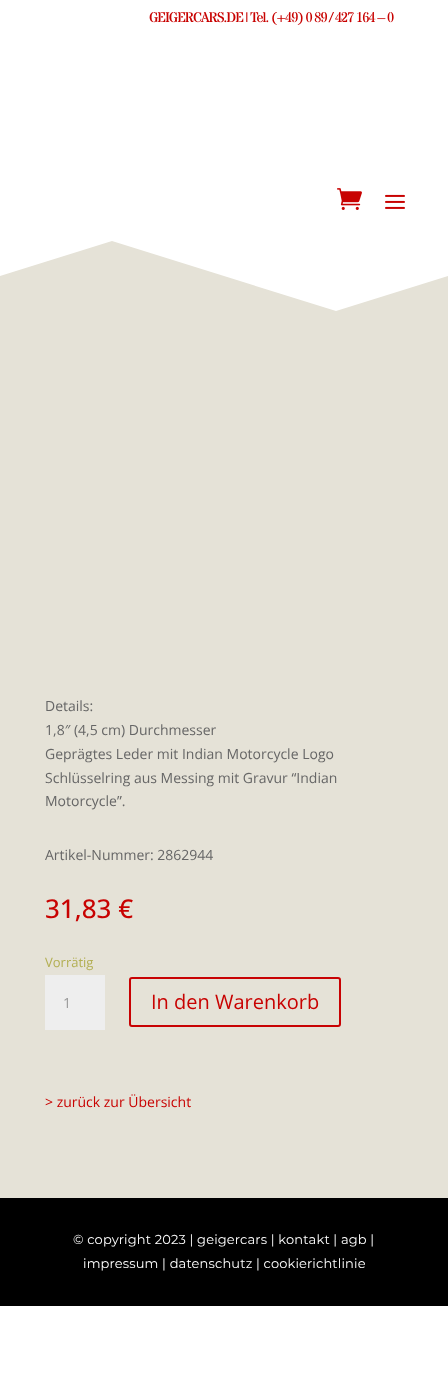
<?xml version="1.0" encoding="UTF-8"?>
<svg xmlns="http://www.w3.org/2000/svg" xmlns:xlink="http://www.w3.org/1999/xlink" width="448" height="1375">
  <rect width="100%" height="100%" fill="#ffffff" />
  <image x="337" y="188" width="25" height="22" xlink:href="image1.png" />
  <image x="385" y="194" width="20" height="15" xlink:href="image2.png" />
  <rect y="241" width="448" height="957" fill="#e5e2d7" />
  <path d="M 448 276 l -112 35 l -224 -70 l -112 35 v -50 h 448 z" fill="#ffffff" />
  <rect x="45" y="975" width="60" height="55" fill="#eeeeee" />
  <rect x="130" y="978" width="210" height="48" rx="2" fill="none" stroke="#c80203" stroke-width="2" />
  <rect y="1198" width="448" height="108" fill="#000000" />
  <text x="149" y="22" style="font-family: Stardos Stencil; font-size: 14px; letter-spacing: -1px; fill: #c80201">GEIGERCARS.DE</text>
  <text x="245" y="22" style="font-family: Stardos Stencil; font-size: 14px; letter-spacing: -1px; fill: #c80201">| Tel.</text>
  <text x="271" y="22" style="font-family: Stardos Stencil; font-size: 14px; letter-spacing: -1px; fill: #c80201">(+49) 0 89 / 427 164 – 0</text>
  <text x="45" y="711" style="font-family: Open Sans; font-size: 14px; fill: #666666">Details:</text>
  <text x="45" y="735" style="font-family: Open Sans; font-size: 14px; fill: #666666">1,8″ (4,5 cm) Durchmesser</text>
  <text x="45" y="759" style="font-family: Open Sans; font-size: 14px; fill: #666666">Geprägtes Leder mit Indian Motorcycle Logo</text>
  <text x="45" y="783" style="font-family: Open Sans; font-size: 14px; fill: #666666">Schlüsselring aus Messing mit Gravur “Indian</text>
  <text x="45" y="806" style="font-family: Open Sans; font-size: 14px; fill: #666666">Motorcycle”.</text>
  <text x="45" y="860" style="font-family: Open Sans; font-size: 14px; fill: #666666">Artikel-Nummer: 2862944</text>
  <text x="45" y="918" style="font-family: Open Sans; font-size: 26px; font-weight: 500; fill: #c80201">31,83 €</text>
  <text x="45" y="967" style="font-family: Open Sans; font-size: 13px; fill: #b3af54">Vorrätig</text>
  <text x="63" y="1008" style="font-family: Open Sans; font-size: 14px; fill: #999999">1</text>
  <text x="151" y="1009" style="font-family: Open Sans; font-size: 20px; fill: #c80201">In den Warenkorb</text>
  <text x="45" y="1107" style="font-family: Open Sans; font-size: 14px; fill: #c80201">&gt; zurück zur Übersicht</text>
  <text x="73" y="1244" style="font-family: Montserrat; font-size: 13px; letter-spacing: 0.15px; fill: #ffffff">© copyright 2023 | geigercars | kontakt | agb |</text>
  <text x="83" y="1268" style="font-family: Montserrat; font-size: 13px; letter-spacing: 0.15px; fill: #ffffff">impressum | datenschutz | cookierichtlinie</text>
</svg>
